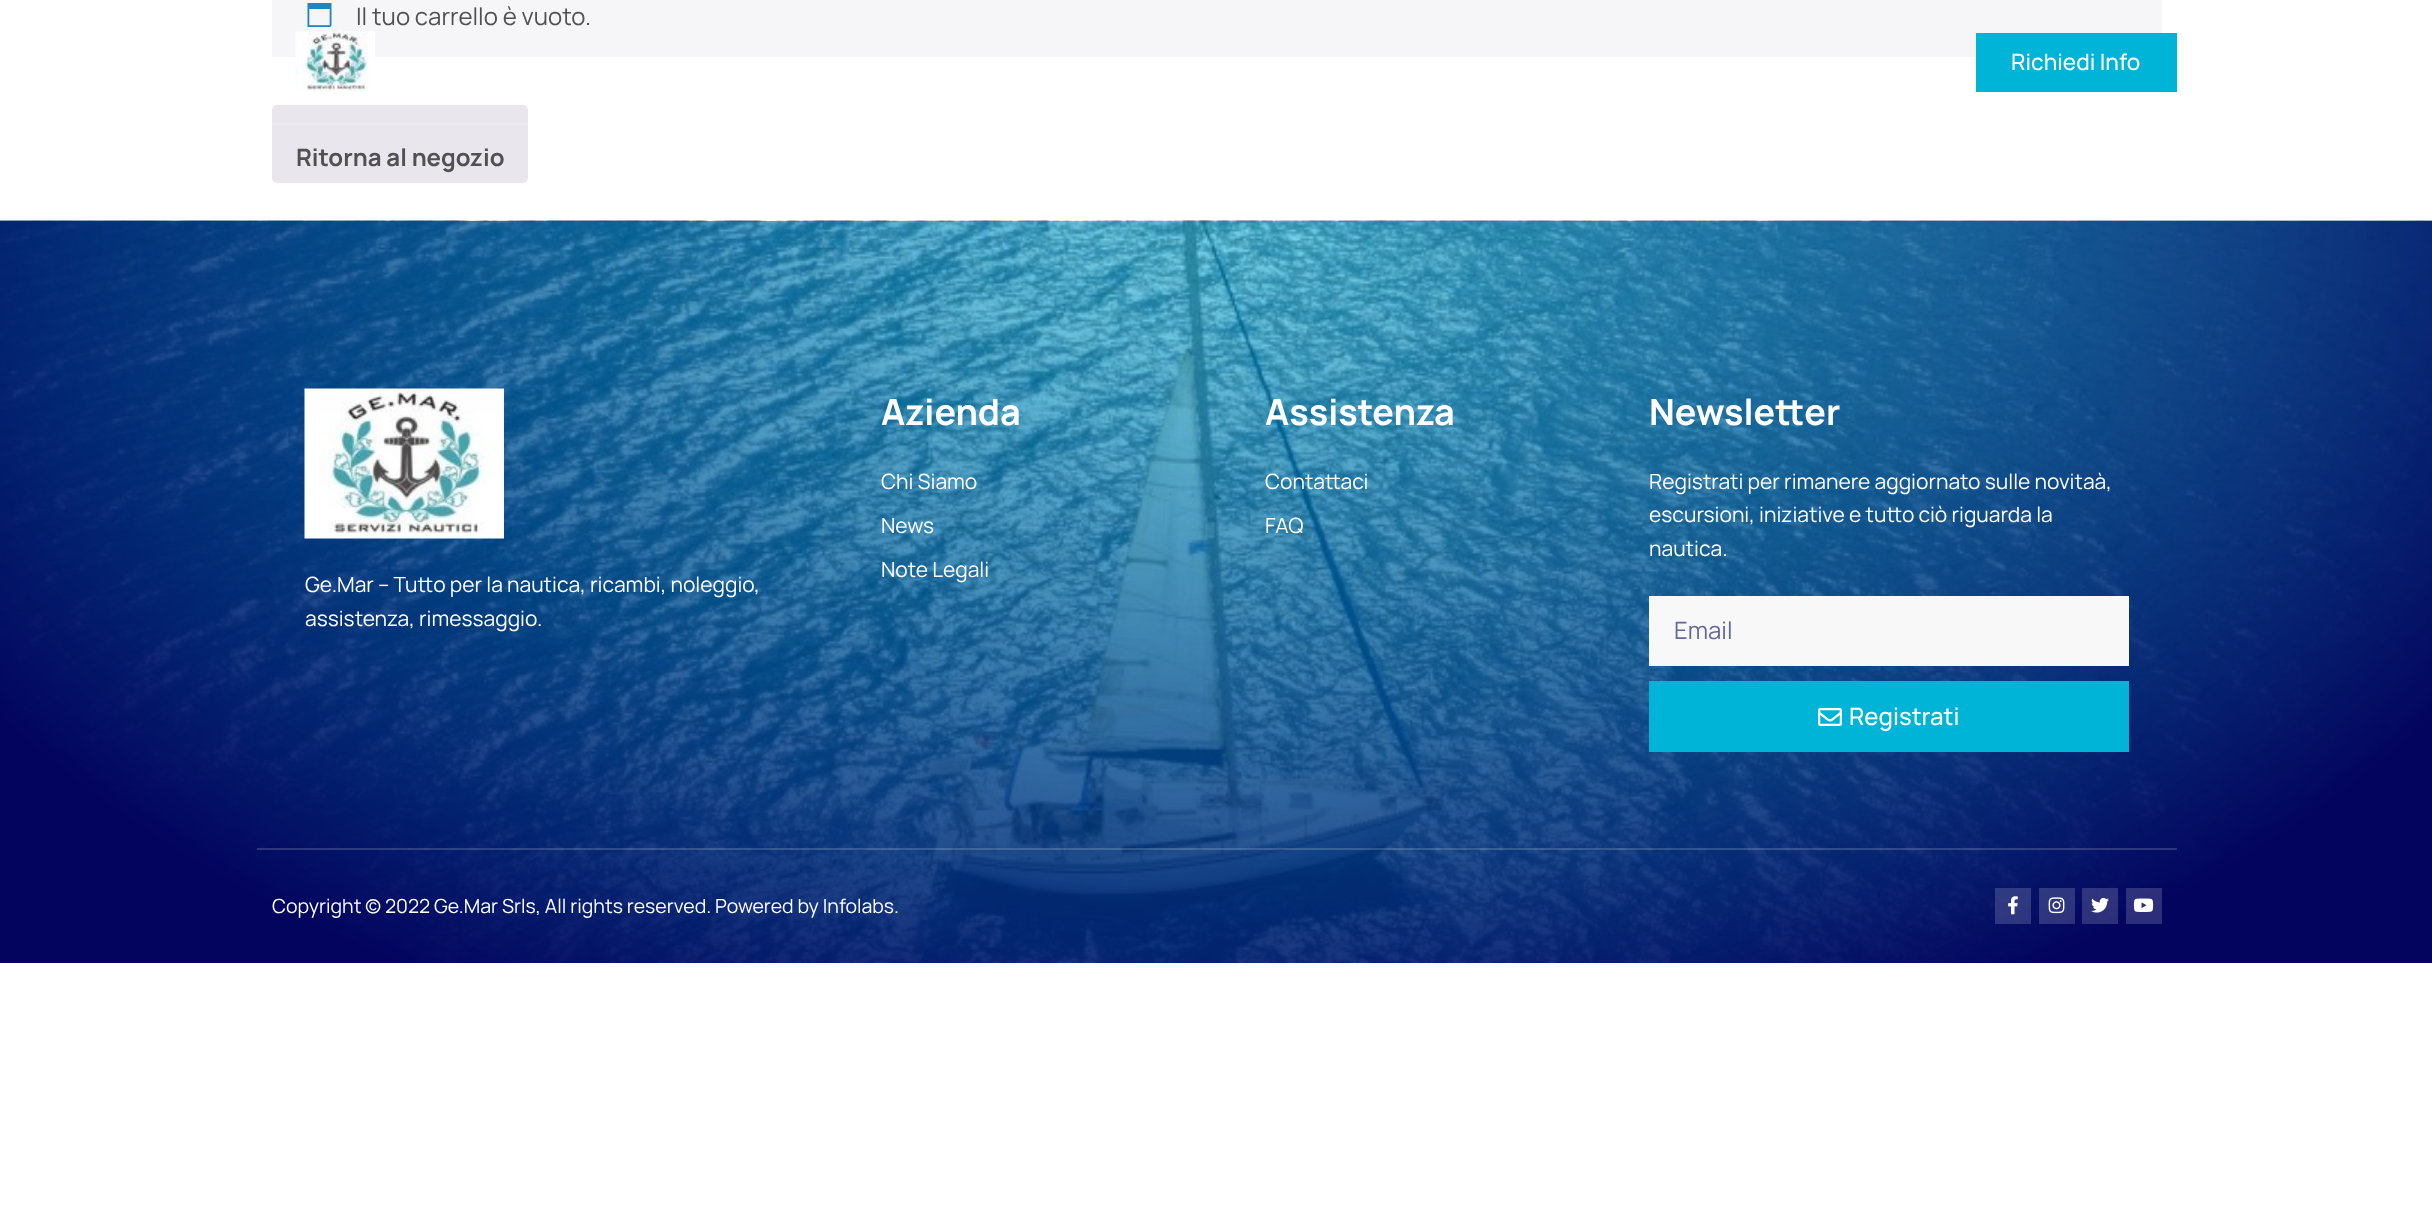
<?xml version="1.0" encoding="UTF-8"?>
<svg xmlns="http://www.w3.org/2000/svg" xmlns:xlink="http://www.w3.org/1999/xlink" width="2432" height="1230">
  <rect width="100%" height="100%" fill="#ffffff" />
  <rect x="272" width="1890" height="57" fill="#f6f5f8" />
  <image x="307" y="3" width="25" height="24" xlink:href="image1.png" />
  <rect x="272" y="105" width="256" height="78" rx="5" fill="#e9e6ed" />
  <rect x="272" y="123" width="256" height="2" fill="#edeaf0" />
  <image x="295" y="31" width="80" height="61" xlink:href="image2.png" />
  <rect x="1976" y="33" width="201" height="59" fill="#00b4d8" />
  <image x="0" y="220" width="2432" height="743" xlink:href="image3.png" />
  <rect x="257" y="848" width="1920" height="2" fill="#ffffff" fill-opacity="0.17" />
  <image x="304" y="388" width="200" height="151" xlink:href="image4.png" />
  <rect x="1649" y="596" width="480" height="70" fill="#f8f8f8" />
  <rect x="1649" y="681" width="480" height="71" fill="#00b4d8" />
  <image x="1818" y="708" width="24" height="18" xlink:href="image5.png" />
  <rect x="1995" y="888" width="36" height="36" fill="#ffffff" fill-opacity="0.17" />
  <image x="2008" y="896" width="10" height="19" xlink:href="image6.png" />
  <rect x="2039" y="888" width="36" height="36" fill="#ffffff" fill-opacity="0.17" />
  <image x="2048" y="897" width="17" height="17" xlink:href="image7.png" />
  <rect x="2082" y="888" width="36" height="36" fill="#ffffff" fill-opacity="0.17" />
  <image x="2091" y="897" width="18" height="16" xlink:href="image8.png" />
  <rect x="2126" y="888" width="36" height="36" fill="#ffffff" fill-opacity="0.17" />
  <image x="2133" y="898" width="21" height="14" xlink:href="image9.png" />
  <text x="356" y="25" style="font-family: Manrope; font-size: 24px; fill: #515151">Il tuo carrello è vuoto.</text>
  <text x="296" y="166" style="font-family: Manrope; font-size: 24px; font-weight: bold; fill: #515151">Ritorna al negozio</text>
  <text x="2011" y="70" style="font-family: Manrope; font-size: 22.5px; font-weight: 500; fill: #ffffff">Richiedi Info</text>
  <text x="305" y="592" style="font-family: Manrope; font-size: 21px; fill: #ffffff">Ge.Mar – Tutto per la nautica, ricambi, noleggio,</text>
  <text x="305" y="626" style="font-family: Manrope; font-size: 21px; fill: #ffffff">assistenza, rimessaggio.</text>
  <text x="881" y="425" style="font-family: Manrope; font-size: 36px; font-weight: bold; fill: #ffffff">Azienda</text>
  <text x="881" y="489" style="font-family: Manrope; font-size: 21px; fill: #ffffff">Chi Siamo</text>
  <text x="881" y="533" style="font-family: Manrope; font-size: 21px; fill: #ffffff">News</text>
  <text x="881" y="577" style="font-family: Manrope; font-size: 21px; fill: #ffffff">Note Legali</text>
  <text x="1265" y="425" style="font-family: Manrope; font-size: 36px; font-weight: bold; fill: #ffffff">Assistenza</text>
  <text x="1265" y="489" style="font-family: Manrope; font-size: 21px; fill: #ffffff">Contattaci</text>
  <text x="1265" y="533" style="font-family: Manrope; font-size: 21px; fill: #ffffff">FAQ</text>
  <text x="1649" y="425" style="font-family: Manrope; font-size: 36px; font-weight: bold; fill: #ffffff">Newsletter</text>
  <text x="1649" y="489" style="font-family: Manrope; font-size: 21px; fill: #ffffff">Registrati per rimanere aggiornato sulle novitaà,</text>
  <text x="1649" y="522" style="font-family: Manrope; font-size: 21px; fill: #ffffff">escursioni, iniziative e tutto ciò riguarda la</text>
  <text x="1649" y="556" style="font-family: Manrope; font-size: 21px; fill: #ffffff">nautica.</text>
  <text x="1674" y="639" style="font-family: Manrope; font-size: 24px; fill: #65669c">Email</text>
  <text x="1849" y="725" style="font-family: Manrope; font-size: 24px; font-weight: 500; fill: #ffffff">Registrati</text>
  <text x="272" y="913" style="font-family: Manrope; font-size: 19.5px; fill: #ffffff">Copyright © 2022 Ge.Mar Srls, All rights reserved. Powered by Infolabs.</text>
</svg>
